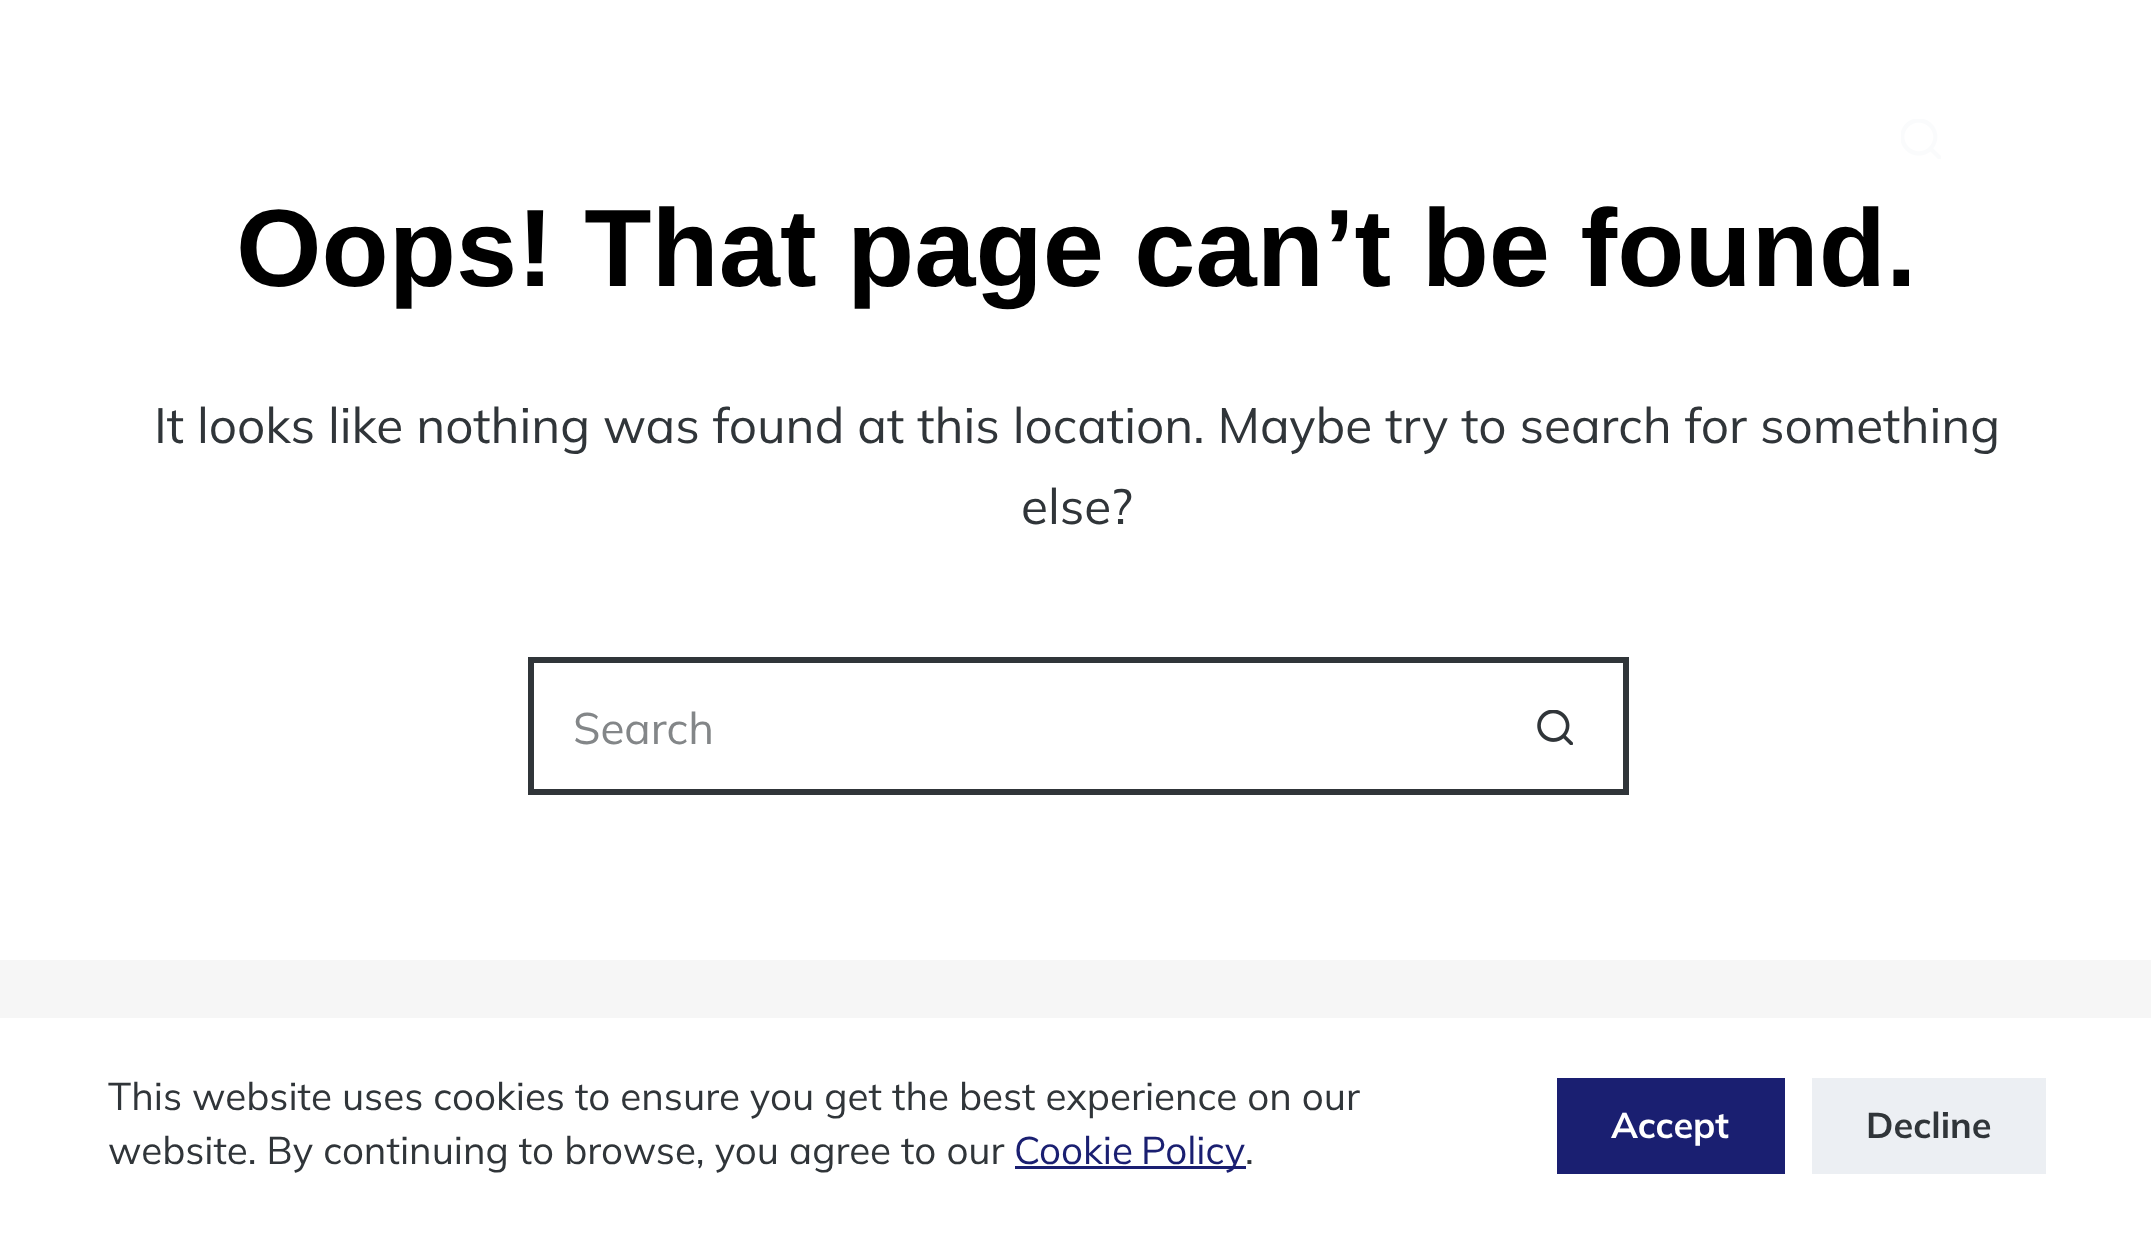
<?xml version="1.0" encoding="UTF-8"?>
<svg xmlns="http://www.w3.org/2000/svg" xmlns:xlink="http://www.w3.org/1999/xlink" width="2151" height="1234">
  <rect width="100%" height="100%" fill="#ffffff" />
  <image x="1901" y="119" width="40" height="40" xlink:href="image1.png" />
  <rect x="528" y="657" width="1100" height="6" fill="#303539" />
  <rect x="528" y="789" width="963" height="6" fill="#303539" />
  <rect x="528" y="657" width="6" height="138" fill="#303539" />
  <rect x="1623" y="657" width="6" height="138" fill="#303539" />
  <rect x="1491" y="789" width="137" height="6" fill="#303539" />
  <image x="1537" y="710" width="36" height="35" xlink:href="image2.png" />
  <rect y="960" width="2151" height="58" fill="#f6f6f6" />
  <rect x="1015" y="1166" width="231" height="3" fill="#1a1f71" />
  <rect x="1557" y="1078" width="228" height="96" fill="#1a1f71" />
  <rect x="1812" y="1078" width="234" height="96" fill="#eceff3" />
  <text x="236" y="286" style="font-family: Liberation Sans; font-size: 110px; font-weight: bold; fill: #000000">Oops! That page can’t be found.</text>
  <text x="154" y="443" style="font-family: Mulish; font-size: 49.5px; fill: #303539">It looks like nothing was found at this location. Maybe try to search for something</text>
  <text x="1021" y="524" style="font-family: Mulish; font-size: 49.5px; fill: #303539">else?</text>
  <text x="573" y="744" style="font-family: Mulish; font-size: 44px; fill: #838688">Search</text>
  <text x="108" y="1110" style="font-family: Mulish; font-size: 38.5px; fill: #303539">This website uses cookies to ensure you get the best experience on our</text>
  <text x="108" y="1164" style="font-family: Mulish; font-size: 38.5px; fill: #303539">website. By continuing to browse, you agree to our</text>
  <text x="1014" y="1164" word-spacing="-2" style="font-family: Mulish; font-size: 38.5px; fill: #1a1f71">Cookie Policy</text>
  <text x="1245" y="1164" style="font-family: Mulish; font-size: 38.5px; fill: #303539">.</text>
  <text x="1611" y="1138" style="font-family: Mulish; font-size: 36px; font-weight: bold; fill: #ffffff">Accept</text>
  <text x="1866" y="1138" style="font-family: Mulish; font-size: 36px; font-weight: bold; fill: #303539">Decline</text>
</svg>
